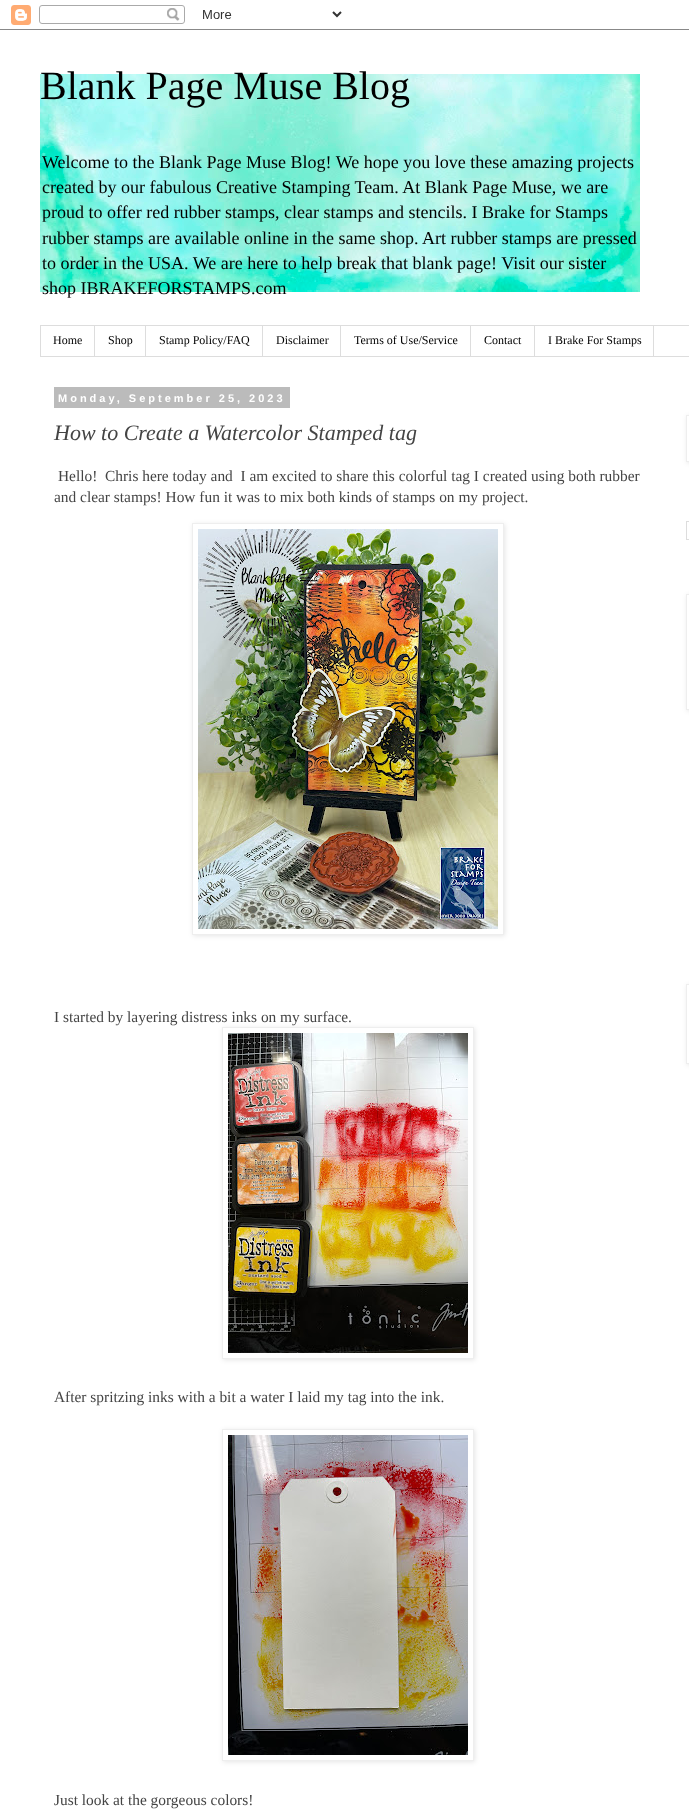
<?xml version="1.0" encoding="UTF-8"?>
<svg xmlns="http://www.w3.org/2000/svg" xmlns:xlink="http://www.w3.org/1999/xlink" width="689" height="1810">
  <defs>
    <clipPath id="clip1"><path d="M 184 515 h 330 v 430 h -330 z m 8 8 h 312 v 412 h -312 z" clip-rule="evenodd" /></clipPath>
    <clipPath id="clip2"><path d="M 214 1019 h 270 v 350 h -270 z m 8 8 h 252 v 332 h -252 z" clip-rule="evenodd" /></clipPath>
    <clipPath id="clip3"><path d="M 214 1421 h 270 v 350 h -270 z m 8 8 h 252 v 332 h -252 z" clip-rule="evenodd" /></clipPath>
    <clipPath id="clip4"><path d="M 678 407 h 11 v 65 h -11 z m 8 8 h 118 v 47 h -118 z" clip-rule="evenodd" /></clipPath>
    <clipPath id="clip5"><path d="M 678 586 h 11 v 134 h -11 z m 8 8 h 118 v 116 h -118 z" clip-rule="evenodd" /></clipPath>
    <clipPath id="clip6"><path d="M 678 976 h 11 v 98 h -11 z m 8 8 h 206 v 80 h -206 z" clip-rule="evenodd" /></clipPath>
  </defs>
  <rect width="100%" height="100%" fill="#ffffff" />
  <image x="0" y="5" width="689" height="25" xlink:href="image1.png" />
  <image x="40" y="74" width="600" height="218" xlink:href="image2.png" />
  <rect x="40.5" y="325.5" width="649" height="31" fill="none" stroke="#dddddd" />
  <rect x="94" y="326" width="1" height="30" fill="#dddddd" />
  <rect x="145" y="326" width="1" height="30" fill="#dddddd" />
  <rect x="262" y="326" width="1" height="30" fill="#dddddd" />
  <rect x="340" y="326" width="1" height="30" fill="#dddddd" />
  <rect x="470" y="326" width="1" height="30" fill="#dddddd" />
  <rect x="534" y="326" width="1" height="30" fill="#dddddd" />
  <rect x="653" y="326" width="1" height="30" fill="#dddddd" />
  <rect x="54" y="387" width="236" height="21" fill="#bbbbbb" />
  <g clip-path="url(#clip1)">
    <rect x="193" y="524" width="312" height="412" fill="#000000" fill-opacity="0.1" filter="blur(2.5px)" />
  </g>
  <rect x="192.5" y="523.5" width="311" height="411" fill="none" stroke="#eeeeee" />
  <image x="198" y="529" width="300" height="400" xlink:href="image3.png" />
  <g clip-path="url(#clip2)">
    <rect x="223" y="1028" width="252" height="332" fill="#000000" fill-opacity="0.1" filter="blur(2.5px)" />
  </g>
  <rect x="222.5" y="1027.5" width="251" height="331" fill="none" stroke="#eeeeee" />
  <image x="228" y="1033" width="240" height="320" xlink:href="image4.png" />
  <g clip-path="url(#clip3)">
    <rect x="223" y="1430" width="252" height="332" fill="#000000" fill-opacity="0.1" filter="blur(2.5px)" />
  </g>
  <rect x="222.5" y="1429.5" width="251" height="331" fill="none" stroke="#eeeeee" />
  <image x="228" y="1435" width="240" height="320" xlink:href="image5.png" />
  <g clip-path="url(#clip4)">
    <rect x="687" y="416" width="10" height="47" fill="#000000" fill-opacity="0.1" filter="blur(2.5px)" />
  </g>
  <rect x="686.5" y="415.5" width="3" height="46" fill="none" stroke="#eeeeee" />
  <rect x="686.5" y="521.5" width="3" height="18" fill="none" stroke="#dddddd" />
  <g clip-path="url(#clip5)">
    <rect x="687" y="595" width="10" height="116" fill="#000000" fill-opacity="0.1" filter="blur(2.5px)" />
  </g>
  <rect x="686.5" y="594.5" width="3" height="115" fill="none" stroke="#eeeeee" />
  <g clip-path="url(#clip6)">
    <rect x="687" y="985" width="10" height="80" fill="#000000" fill-opacity="0.1" filter="blur(2.5px)" />
  </g>
  <rect x="686.5" y="984.5" width="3" height="79" fill="none" stroke="#eeeeee" />
  <text x="40" y="99" style="font-family: Liberation Serif; font-size: 40px; fill: #000000">Blank Page Muse Blog</text>
  <text x="42" y="168" style="font-family: Liberation Serif; font-size: 18px; fill: #000000">Welcome to the Blank Page Muse Blog! We hope you love these amazing projects</text>
  <text x="42" y="193" style="font-family: Liberation Serif; font-size: 18px; fill: #000000">created by our fabulous Creative Stamping Team. At Blank Page Muse, we are</text>
  <text x="42" y="218" style="font-family: Liberation Serif; font-size: 18px; fill: #000000">proud to offer red rubber stamps, clear stamps and stencils. I Brake for Stamps</text>
  <text x="42" y="244" style="font-family: Liberation Serif; font-size: 18px; fill: #000000">rubber stamps are available online in the same shop. Art rubber stamps are pressed</text>
  <text x="42" y="269" style="font-family: Liberation Serif; font-size: 18px; fill: #000000">to order in the USA. We are here to help break that blank page! Visit our sister</text>
  <text x="42" y="294" style="font-family: Liberation Serif; font-size: 18px; fill: #000000">shop IBRAKEFORSTAMPS.com</text>
  <text x="53" y="344" style="font-family: Liberation Serif; font-size: 12px; fill: #000000">Home</text>
  <text x="108" y="344" style="font-family: Liberation Serif; font-size: 12px; fill: #000000">Shop</text>
  <text x="159" y="344" style="font-family: Liberation Serif; font-size: 12px; fill: #000000">Stamp Policy/FAQ</text>
  <text x="276" y="344" style="font-family: Liberation Serif; font-size: 12px; fill: #000000">Disclaimer</text>
  <text x="354" y="344" style="font-family: Liberation Serif; font-size: 12px; fill: #000000">Terms of Use/Service</text>
  <text x="484" y="344" style="font-family: Liberation Serif; font-size: 12px; fill: #000000">Contact</text>
  <text x="548" y="344" style="font-family: Liberation Serif; font-size: 12px; fill: #000000">I Brake For Stamps</text>
  <text x="58" y="402" style="font-family: Liberation Sans; font-size: 11px; font-weight: bold; letter-spacing: 3px; fill: #ffffff">Monday, September 25, 2023</text>
  <text x="54" y="440" style="font-family: Liberation Serif; font-size: 22px; font-style: italic; fill: #444444">How to Create a Watercolor Stamped tag</text>
  <text x="58" y="481" style="font-family: Liberation Serif; font-size: 15.4px; fill: #444444" xml:space="preserve">Hello!  Chris here today and  I am excited to share this colorful tag I created using both rubber</text>
  <text x="54" y="502" style="font-family: Liberation Serif; font-size: 15.4px; fill: #444444">and clear stamps! How fun it was to mix both kinds of stamps on my project.</text>
  <text x="54" y="1022" style="font-family: Liberation Serif; font-size: 15.4px; fill: #444444">I started by layering distress inks on my surface.</text>
  <text x="54" y="1402" style="font-family: Liberation Serif; font-size: 15.4px; fill: #444444">After spritzing inks with a bit a water I laid my tag into the ink.</text>
  <text x="54" y="1805" style="font-family: Liberation Serif; font-size: 15.4px; fill: #444444">Just look at the gorgeous colors!</text>
</svg>
